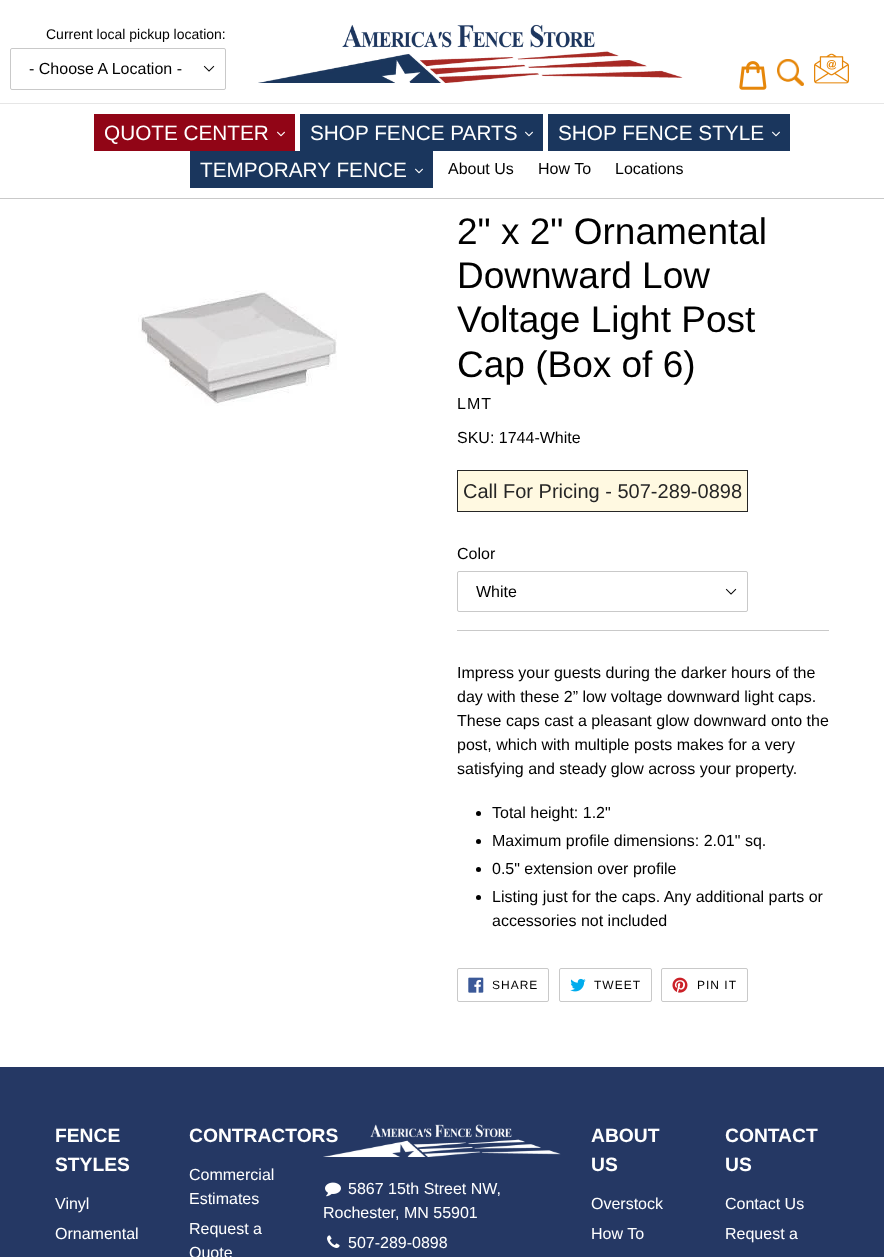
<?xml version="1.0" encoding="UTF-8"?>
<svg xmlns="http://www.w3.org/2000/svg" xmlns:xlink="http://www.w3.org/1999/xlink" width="884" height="1257">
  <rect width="100%" height="100%" fill="#ffffff" />
  <rect y="103" width="884" height="1" fill="#e6e6e6" />
  <image x="203" y="65" width="12" height="7" xlink:href="image1.png" />
  <rect x="10.5" y="48.5" width="215" height="41" rx="1.5" fill="none" stroke="#c9c9c9" />
  <image x="258" y="24" width="425" height="59" xlink:href="image2.png" />
  <image x="739" y="61" width="28" height="29" xlink:href="image3.png" />
  <image x="777" y="59" width="27" height="27" xlink:href="image4.png" />
  <image x="814" y="53" width="35" height="31" xlink:href="image5.png" />
  <rect y="198" width="884" height="1" fill="#c9c9c9" />
  <rect x="94" y="114" width="201" height="37" fill="#910516" />
  <image x="277" y="131" width="8" height="6" xlink:href="image6.png" />
  <rect x="300" y="114" width="243" height="37" fill="#1a365d" />
  <image x="525" y="131" width="8" height="6" xlink:href="image7.png" />
  <rect x="548" y="114" width="242" height="37" fill="#1a365d" />
  <image x="772" y="131" width="8" height="6" xlink:href="image7.png" />
  <rect x="190" y="151" width="243" height="37" fill="#1a365d" />
  <image x="415" y="168" width="8" height="6" xlink:href="image7.png" />
  <image x="138" y="290" width="199" height="116" xlink:href="image8.png" />
  <rect x="457.5" y="470.5" width="290" height="41" fill="#fff9e1" stroke="#262626" />
  <image x="725" y="588" width="12" height="7" xlink:href="image1.png" />
  <rect x="457.5" y="571.5" width="290" height="40" rx="1.5" fill="none" stroke="#c9c9c9" />
  <rect x="457" y="630" width="372" height="1" fill="#c9c9c9" />
  <circle cx="478.5" cy="813.5" r="2.5" fill="#000000" />
  <circle cx="478.5" cy="841.5" r="2.5" fill="#000000" />
  <circle cx="478.5" cy="869.5" r="2.5" fill="#000000" />
  <circle cx="478.5" cy="897.5" r="2.5" fill="#000000" />
  <rect x="457.5" y="968.5" width="91" height="33" rx="1.5" fill="none" stroke="#c9c9c9" />
  <image x="468" y="977" width="16" height="16" xlink:href="image9.png" />
  <rect x="559.5" y="968.5" width="92" height="33" rx="1.5" fill="none" stroke="#c9c9c9" />
  <image x="570" y="978" width="16" height="14" xlink:href="image10.png" />
  <rect x="661.5" y="968.5" width="86" height="33" rx="1.5" fill="none" stroke="#c9c9c9" />
  <image x="672" y="977" width="16" height="16" xlink:href="image11.png" />
  <rect y="1067" width="884" height="190" fill="#253864" />
  <image x="325" y="1182" width="16" height="15" xlink:href="image13.png" />
  <image x="327" y="1235" width="13" height="13" xlink:href="image14.png" />
  <text x="46" y="39" style="font-family: Liberation Sans; font-size: 14px; fill: #000000">Current local pickup location:</text>
  <text x="29" y="74" style="font-family: Liberation Sans; font-size: 16px; fill: #000000">- Choose A Location -</text>
  <text x="104" y="140" style="font-family: Liberation Sans; font-size: 20.75px; fill: #ffffff">QUOTE CENTER</text>
  <text x="310" y="140" style="font-family: Liberation Sans; font-size: 20.75px; fill: #ffffff">SHOP FENCE PARTS</text>
  <text x="558" y="140" style="font-family: Liberation Sans; font-size: 20.75px; fill: #ffffff">SHOP FENCE STYLE</text>
  <text x="200" y="177" style="font-family: Liberation Sans; font-size: 20.75px; fill: #ffffff">TEMPORARY FENCE</text>
  <text x="448" y="174" style="font-family: Liberation Sans; font-size: 16px; fill: #000000">About Us</text>
  <text x="538" y="174" style="font-family: Liberation Sans; font-size: 16px; fill: #000000">How To</text>
  <text x="615" y="174" style="font-family: Liberation Sans; font-size: 16px; fill: #000000">Locations</text>
  <text x="457" y="244" style="font-family: Liberation Sans; font-size: 37px; fill: #000000">2" x 2" Ornamental</text>
  <text x="457" y="288" style="font-family: Liberation Sans; font-size: 37px; fill: #000000">Downward Low</text>
  <text x="457" y="332" style="font-family: Liberation Sans; font-size: 37px; fill: #000000">Voltage Light Post</text>
  <text x="457" y="377" style="font-family: Liberation Sans; font-size: 37px; fill: #000000">Cap (Box of 6)</text>
  <text x="457" y="409" style="font-family: Liberation Sans; font-size: 16px; letter-spacing: 1px; fill: #000000">LMT</text>
  <text x="457" y="443" style="font-family: Liberation Sans; font-size: 16px; fill: #000000">SKU: 1744-White</text>
  <text x="463" y="498" style="font-family: Liberation Sans; font-size: 20px; fill: #262626">Call For Pricing - 507-289-0898</text>
  <text x="457" y="559" style="font-family: Liberation Sans; font-size: 16px; fill: #000000">Color</text>
  <text x="476" y="597" style="font-family: Liberation Sans; font-size: 16px; fill: #000000">White</text>
  <text x="457" y="678" style="font-family: Liberation Sans; font-size: 16px; fill: #000000">Impress your guests during the darker hours of the</text>
  <text x="457" y="702" style="font-family: Liberation Sans; font-size: 16px; fill: #000000">day with these 2” low voltage downward light caps.</text>
  <text x="457" y="726" style="font-family: Liberation Sans; font-size: 16px; fill: #000000">These caps cast a pleasant glow downward onto the</text>
  <text x="457" y="750" style="font-family: Liberation Sans; font-size: 16px; fill: #000000">post, which with multiple posts makes for a very</text>
  <text x="457" y="774" style="font-family: Liberation Sans; font-size: 16px; fill: #000000">satisfying and steady glow across your property.</text>
  <text x="492" y="818" style="font-family: Liberation Sans; font-size: 16px; fill: #000000">Total height: 1.2"</text>
  <text x="492" y="846" style="font-family: Liberation Sans; font-size: 16px; fill: #000000">Maximum profile dimensions: 2.01" sq.</text>
  <text x="492" y="874" style="font-family: Liberation Sans; font-size: 16px; fill: #000000">0.5" extension over profile</text>
  <text x="492" y="902" style="font-family: Liberation Sans; font-size: 16px; fill: #000000">Listing just for the caps. Any additional parts or</text>
  <text x="492" y="926" style="font-family: Liberation Sans; font-size: 16px; fill: #000000">accessories not included</text>
  <text x="492" y="989" style="font-family: Liberation Sans; font-size: 12px; letter-spacing: 1px; fill: #000000">SHARE</text>
  <text x="594" y="989" style="font-family: Liberation Sans; font-size: 12px; letter-spacing: 1px; fill: #000000">TWEET</text>
  <text x="697" y="989" style="font-family: Liberation Sans; font-size: 12px; letter-spacing: 1px; fill: #000000">PIN IT</text>
  <text x="55" y="1142" style="font-family: Liberation Sans; font-size: 19.25px; font-weight: bold; fill: #ffffff">FENCE</text>
  <text x="55" y="1171" style="font-family: Liberation Sans; font-size: 19.25px; font-weight: bold; fill: #ffffff">STYLES</text>
  <text x="55" y="1209" style="font-family: Liberation Sans; font-size: 16px; fill: #ffffff">Vinyl</text>
  <text x="55" y="1239" style="font-family: Liberation Sans; font-size: 16px; fill: #ffffff">Ornamental</text>
  <text x="189" y="1142" style="font-family: Liberation Sans; font-size: 19.25px; font-weight: bold; fill: #ffffff">CONTRACTORS</text>
  <text x="189" y="1180" style="font-family: Liberation Sans; font-size: 16px; fill: #ffffff">Commercial</text>
  <text x="189" y="1204" style="font-family: Liberation Sans; font-size: 16px; fill: #ffffff">Estimates</text>
  <text x="189" y="1234" style="font-family: Liberation Sans; font-size: 16px; fill: #ffffff">Request a</text>
  <text x="189" y="1258" style="font-family: Liberation Sans; font-size: 16px; fill: #ffffff">Quote</text>
  <image x="323" y="1124" width="238" height="33" xlink:href="image12.png" />
  <text x="348" y="1194" style="font-family: Liberation Sans; font-size: 16px; fill: #ffffff">5867 15th Street NW,</text>
  <text x="323" y="1218" style="font-family: Liberation Sans; font-size: 16px; fill: #ffffff">Rochester, MN 55901</text>
  <text x="348" y="1248" style="font-family: Liberation Sans; font-size: 16px; fill: #ffffff">507-289-0898</text>
  <text x="591" y="1142" style="font-family: Liberation Sans; font-size: 19.25px; font-weight: bold; fill: #ffffff">ABOUT</text>
  <text x="591" y="1171" style="font-family: Liberation Sans; font-size: 19.25px; font-weight: bold; fill: #ffffff">US</text>
  <text x="591" y="1209" style="font-family: Liberation Sans; font-size: 16px; fill: #ffffff">Overstock</text>
  <text x="591" y="1239" style="font-family: Liberation Sans; font-size: 16px; fill: #ffffff">How To</text>
  <text x="725" y="1142" style="font-family: Liberation Sans; font-size: 19.25px; font-weight: bold; fill: #ffffff">CONTACT</text>
  <text x="725" y="1171" style="font-family: Liberation Sans; font-size: 19.25px; font-weight: bold; fill: #ffffff">US</text>
  <text x="725" y="1209" style="font-family: Liberation Sans; font-size: 16px; fill: #ffffff">Contact Us</text>
  <text x="725" y="1239" style="font-family: Liberation Sans; font-size: 16px; fill: #ffffff">Request a</text>
</svg>
